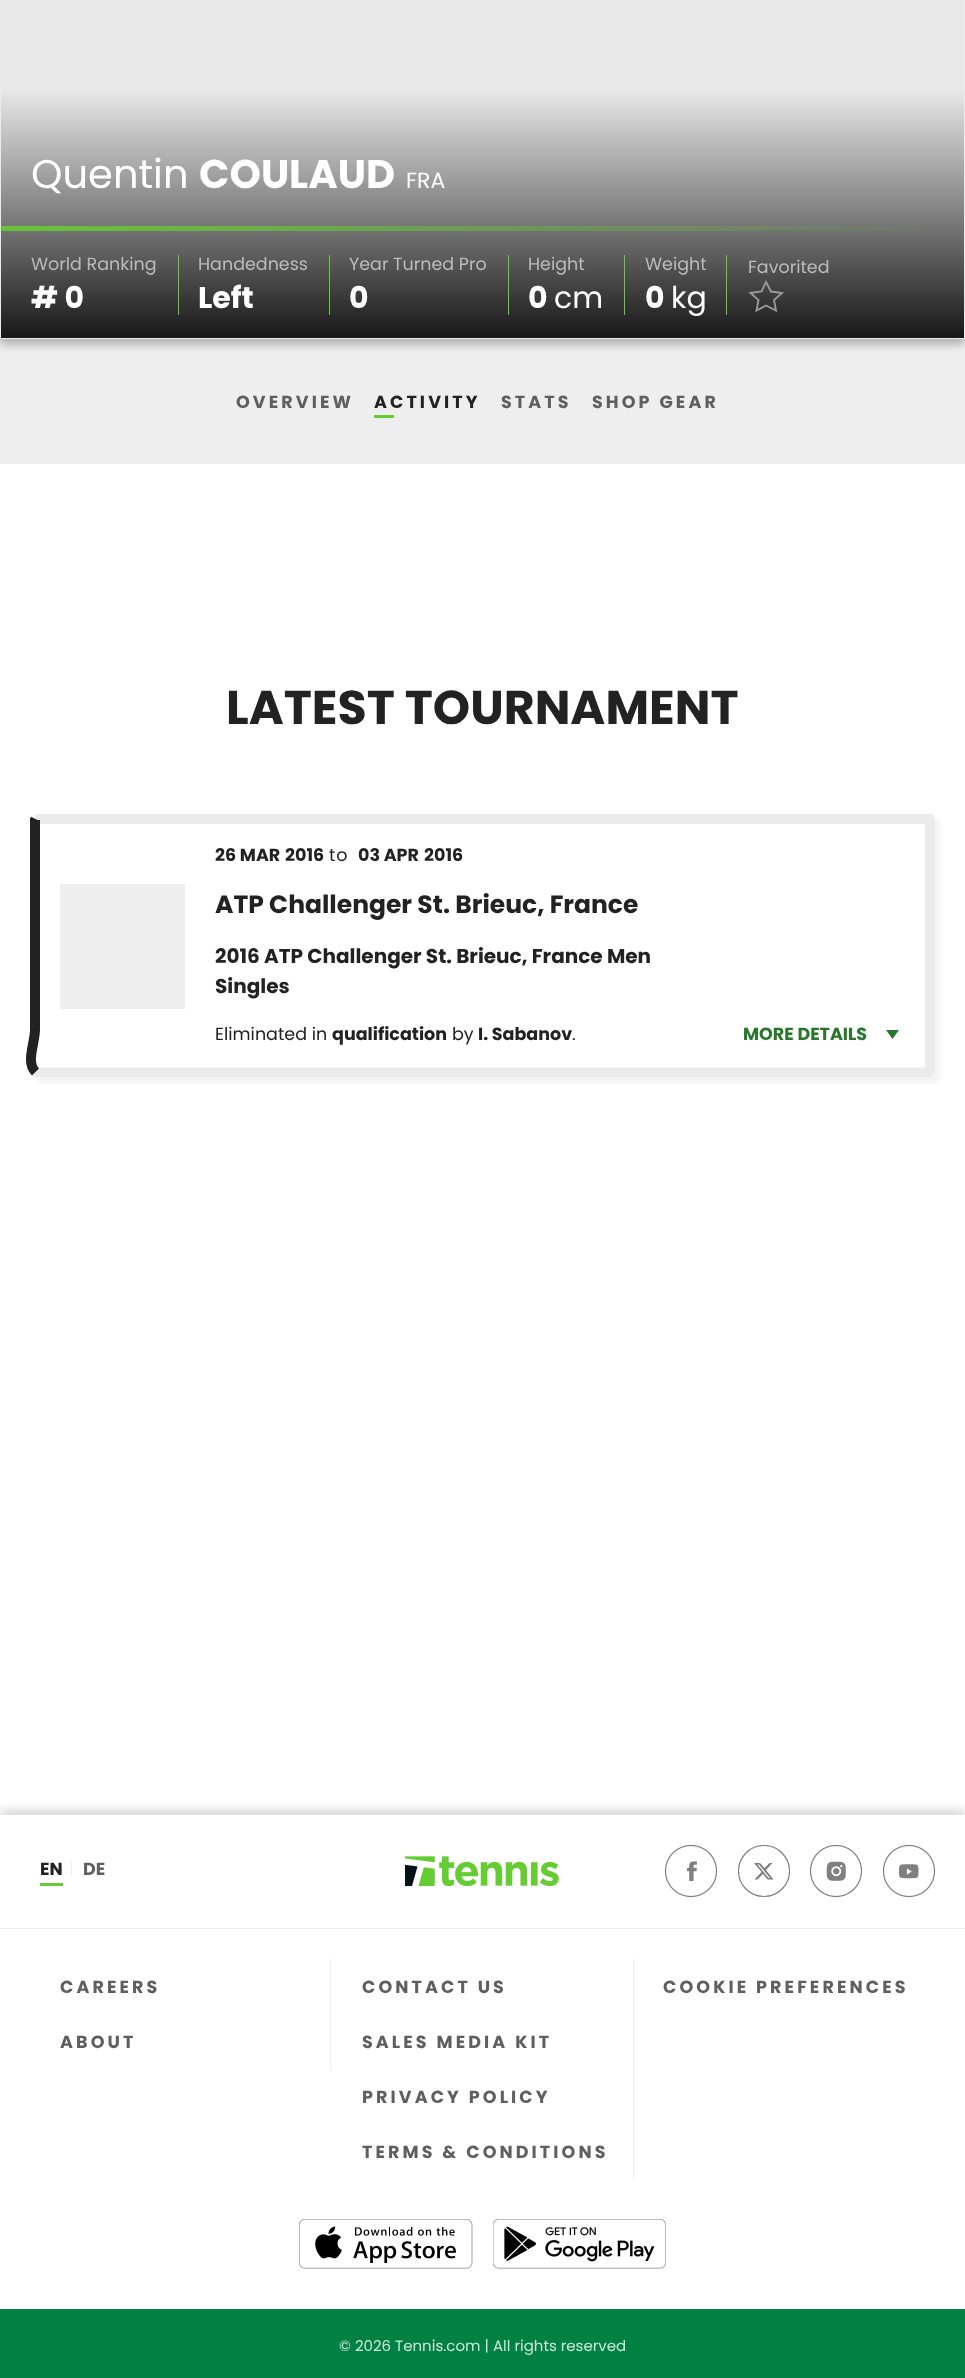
<?xml version="1.0" encoding="UTF-8"?>
<svg xmlns="http://www.w3.org/2000/svg" xmlns:xlink="http://www.w3.org/1999/xlink" width="965" height="2378">
  <defs>
    <linearGradient id="g1" gradientUnits="userSpaceOnUse" x1="483" y1="-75" x2="483" y2="338"><stop offset="0" stop-color="#e8e8e8" /><stop offset="0.4" stop-color="#e8e8e8" /><stop offset="1" stop-color="#171717" /></linearGradient>
    <clipPath id="clip1"><rect x="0" y="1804" width="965" height="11" /></clipPath>
    <clipPath id="clip2"><rect x="738" y="1845" width="52" height="53" /></clipPath>
  </defs>
  <rect width="100%" height="100%" fill="#ffffff" />
  <rect y="339" width="965" height="125" fill="#eeeeee" />
  <rect y="-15" width="965" height="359" fill="#000000" fill-opacity="0.28" filter="blur(5px)" />
  <rect x="0.5" y="-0.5" width="964" height="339" fill="none" stroke="#ebebeb" />
  <rect x="1" width="963" height="338" fill="url(#g1)" />
  <image x="1" y="226" width="921" height="5" xlink:href="image1.png" />
  <rect x="178" y="255" width="1" height="60" fill="#66cc33" />
  <rect x="329" y="255" width="1" height="60" fill="#66cc33" />
  <rect x="508" y="255" width="1" height="60" fill="#66cc33" />
  <rect x="624" y="255" width="1" height="60" fill="#66cc33" />
  <rect x="726" y="255" width="1" height="60" fill="#66cc33" />
  <path d="M 766 282 l 5 9.5 l 11 1.5 l -8 7 l 2 10.5 l -10 -5 l -9.5 5 l 2 -10.5 l -8 -7 l 11 -1.5 z" fill="none" stroke="#999999" stroke-width="1.9" />
  <rect x="374" y="415" width="20" height="3" fill="#66cc33" />
  <rect x="35" y="819" width="905" height="264" rx="6" fill="#000000" fill-opacity="0.05" filter="blur(2.5px)" />
  <rect x="30" y="814" width="905" height="264" rx="6" fill="#ffffff" />
  <path d="M 35.5 819 h 0.5 h 893 h 0.5 l 0.5 1 v 251 l -0.5 1 l -0.5 0.5 h -893 l -0.5 -0.5" fill="none" stroke="#ebebeb" stroke-width="10" />
  <path d="M 35.5 1072 c -10 -10 -0.5 -28.5 -0.5 -42.5 v -209.5 l 0.5 -1" fill="none" stroke="#222222" stroke-width="10" />
  <rect x="60" y="884" width="125" height="125" fill="#eeeeee" />
  <path d="M 886 1030 h 13 l -6.5 9 z" fill="#26762c" />
  <g clip-path="url(#clip1)">
    <rect y="1810" width="965" height="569" fill="#000000" fill-opacity="0.16" filter="blur(5px)" />
  </g>
  <rect y="1928" width="965" height="1" fill="#eeeeee" />
  <rect x="40" y="1883" width="23" height="3" fill="#66cc33" />
  <rect x="71" y="1861" width="1" height="15" fill="#eeeeee" />
  <image x="405" y="1856" width="154" height="30" xlink:href="image2.png" />
  <image x="665" y="1845" width="53" height="53" xlink:href="image3.png" />
  <path d="M 769.5 1863 h 3 l -6.5 7 l 7.5 9.5 h -6 l -4.5 -5.5 l -5.5 5.5 h -3 l 7 -7.5 l -7.5 -9 h 6 l 4.5 5 z m -1 15 h 1.5 l -11 -13.5 h -1.5 z" fill="#808080" />
  <g clip-path="url(#clip2)">
    <circle cx="764" cy="1871" r="25.5" fill="none" stroke="#808080" stroke-width="1.2" />
  </g>
  <image x="810" y="1845" width="53" height="53" xlink:href="image4.png" />
  <image x="883" y="1845" width="52" height="53" xlink:href="image5.png" />
  <rect x="330" y="1959" width="1" height="110" fill="#eeeeee" />
  <rect x="633" y="1959" width="1" height="220" fill="#eeeeee" />
  <image x="299" y="2219" width="174" height="50" xlink:href="image6.png" />
  <image x="493" y="2219" width="173" height="50" xlink:href="image7.png" />
  <rect y="2309" width="965" height="69" fill="#018141" />
  <text x="31" y="188" style="font-family: Poppins; font-size: 40px; fill: #ffffff">Quentin</text>
  <text x="199" y="188" style="font-family: Poppins; font-size: 40px; font-weight: bold; fill: #ffffff">COULAUD</text>
  <text x="406" y="188" style="font-family: Poppins; font-size: 22px; fill: #ffffff">FRA</text>
  <text x="31" y="270" style="font-family: Poppins; font-size: 17.5px; fill: #bbbbbb">World Ranking</text>
  <text x="31" y="308" style="font-family: Poppins; font-size: 30px; font-weight: bold; fill: #ffffff"># 0</text>
  <text x="198" y="270" style="font-family: Poppins; font-size: 17.5px; fill: #bbbbbb">Handedness</text>
  <text x="198" y="308" style="font-family: Poppins; font-size: 30px; font-weight: bold; fill: #ffffff">Left</text>
  <text x="349" y="270" style="font-family: Poppins; font-size: 17.5px; fill: #bbbbbb">Year Turned Pro</text>
  <text x="349" y="308" style="font-family: Poppins; font-size: 30px; font-weight: bold; fill: #ffffff">0</text>
  <text x="528" y="270" style="font-family: Poppins; font-size: 17.5px; fill: #bbbbbb">Height</text>
  <text x="528" y="308" style="font-family: Poppins; font-size: 30px; font-weight: bold; fill: #ffffff">0</text>
  <text x="554" y="308" style="font-family: Poppins; font-size: 30px; fill: #ffffff">cm</text>
  <text x="645" y="270" style="font-family: Poppins; font-size: 17.5px; fill: #bbbbbb">Weight</text>
  <text x="645" y="308" style="font-family: Poppins; font-size: 30px; font-weight: bold; fill: #ffffff">0</text>
  <text x="671" y="308" style="font-family: Poppins; font-size: 30px; fill: #ffffff">kg</text>
  <text x="748" y="273" style="font-family: Poppins; font-size: 17.5px; fill: #bbbbbb">Favorited</text>
  <text x="236" y="408" style="font-family: Poppins; font-size: 17.5px; font-weight: bold; letter-spacing: 3.1px; fill: #5f5f5f">OVERVIEW</text>
  <text x="374" y="408" style="font-family: Poppins; font-size: 17.5px; font-weight: bold; letter-spacing: 3.1px; fill: #222222">ACTIVITY</text>
  <text x="501" y="408" style="font-family: Poppins; font-size: 17.5px; font-weight: bold; letter-spacing: 3.1px; fill: #5f5f5f">STATS</text>
  <text x="592" y="408" style="font-family: Poppins; font-size: 17.5px; font-weight: bold; letter-spacing: 3.1px; fill: #5f5f5f">SHOP GEAR</text>
  <text x="226" y="724" style="font-family: Poppins; font-size: 47.5px; font-weight: bold; fill: #222222">LATEST TOURNAMENT</text>
  <text x="215" y="861" style="font-family: Poppins; font-size: 17.5px; font-weight: bold; fill: #222222">26 MAR</text>
  <text x="285" y="861" style="font-family: Poppins; font-size: 17.5px; font-weight: bold; fill: #222222">2016</text>
  <text x="329" y="861" style="font-family: Poppins; font-size: 17.5px; letter-spacing: 1px; fill: #222222">to</text>
  <text x="358" y="861" style="font-family: Poppins; font-size: 17.5px; font-weight: bold; fill: #222222">03 APR</text>
  <text x="424" y="861" style="font-family: Poppins; font-size: 17.5px; font-weight: bold; fill: #222222">2016</text>
  <text x="215" y="913" style="font-family: Poppins; font-size: 25px; font-weight: bold; fill: #222222">ATP Challenger St. Brieuc, France</text>
  <text x="215" y="963" style="font-family: Poppins; font-size: 20px; font-weight: bold; fill: #222222">2016 ATP Challenger St. Brieuc, France Men</text>
  <text x="215" y="993" style="font-family: Poppins; font-size: 20px; font-weight: bold; fill: #222222">Singles</text>
  <text x="215" y="1040" style="font-family: Poppins; font-size: 17.5px; fill: #222222">Eliminated in</text>
  <text x="332" y="1040" style="font-family: Poppins; font-size: 17.5px; font-weight: bold; fill: #222222">qualification</text>
  <text x="452" y="1040" style="font-family: Poppins; font-size: 17.5px; fill: #222222">by</text>
  <text x="478" y="1040" style="font-family: Poppins; font-size: 17.5px; font-weight: bold; fill: #222222">I. Sabanov</text>
  <text x="572" y="1040" style="font-family: Poppins; font-size: 17.5px; fill: #222222">.</text>
  <text x="743" y="1040" style="font-family: Poppins; font-size: 17.5px; font-weight: bold; fill: #26762c">MORE DETAILS</text>
  <text x="40" y="1875" style="font-family: Poppins; font-size: 17.5px; font-weight: bold; fill: #222222">EN</text>
  <text x="83" y="1875" style="font-family: Poppins; font-size: 17.5px; font-weight: bold; fill: #5f5f5f">DE</text>
  <text x="60" y="1993" style="font-family: Poppins; font-size: 17.5px; font-weight: bold; letter-spacing: 3.1px; fill: #5f5f5f">CAREERS</text>
  <text x="60" y="2048" style="font-family: Poppins; font-size: 17.5px; font-weight: bold; letter-spacing: 3.1px; fill: #5f5f5f">ABOUT</text>
  <text x="362" y="1993" style="font-family: Poppins; font-size: 17.5px; font-weight: bold; letter-spacing: 3.1px; fill: #5f5f5f">CONTACT US</text>
  <text x="362" y="2048" style="font-family: Poppins; font-size: 17.5px; font-weight: bold; letter-spacing: 3.1px; fill: #5f5f5f">SALES MEDIA KIT</text>
  <text x="362" y="2103" style="font-family: Poppins; font-size: 17.5px; font-weight: bold; letter-spacing: 3.1px; fill: #5f5f5f">PRIVACY POLICY</text>
  <text x="362" y="2158" style="font-family: Poppins; font-size: 17.5px; font-weight: bold; letter-spacing: 3.1px; fill: #5f5f5f">TERMS &amp; CONDITIONS</text>
  <text x="663" y="1993" style="font-family: Poppins; font-size: 17.5px; font-weight: bold; letter-spacing: 3.1px; fill: #5f5f5f">COOKIE PREFERENCES</text>
  <text x="339" y="2351" style="font-family: Poppins; font-size: 15px; fill: #cce6d9">© 2026 Tennis.com | All rights reserved</text>
</svg>
